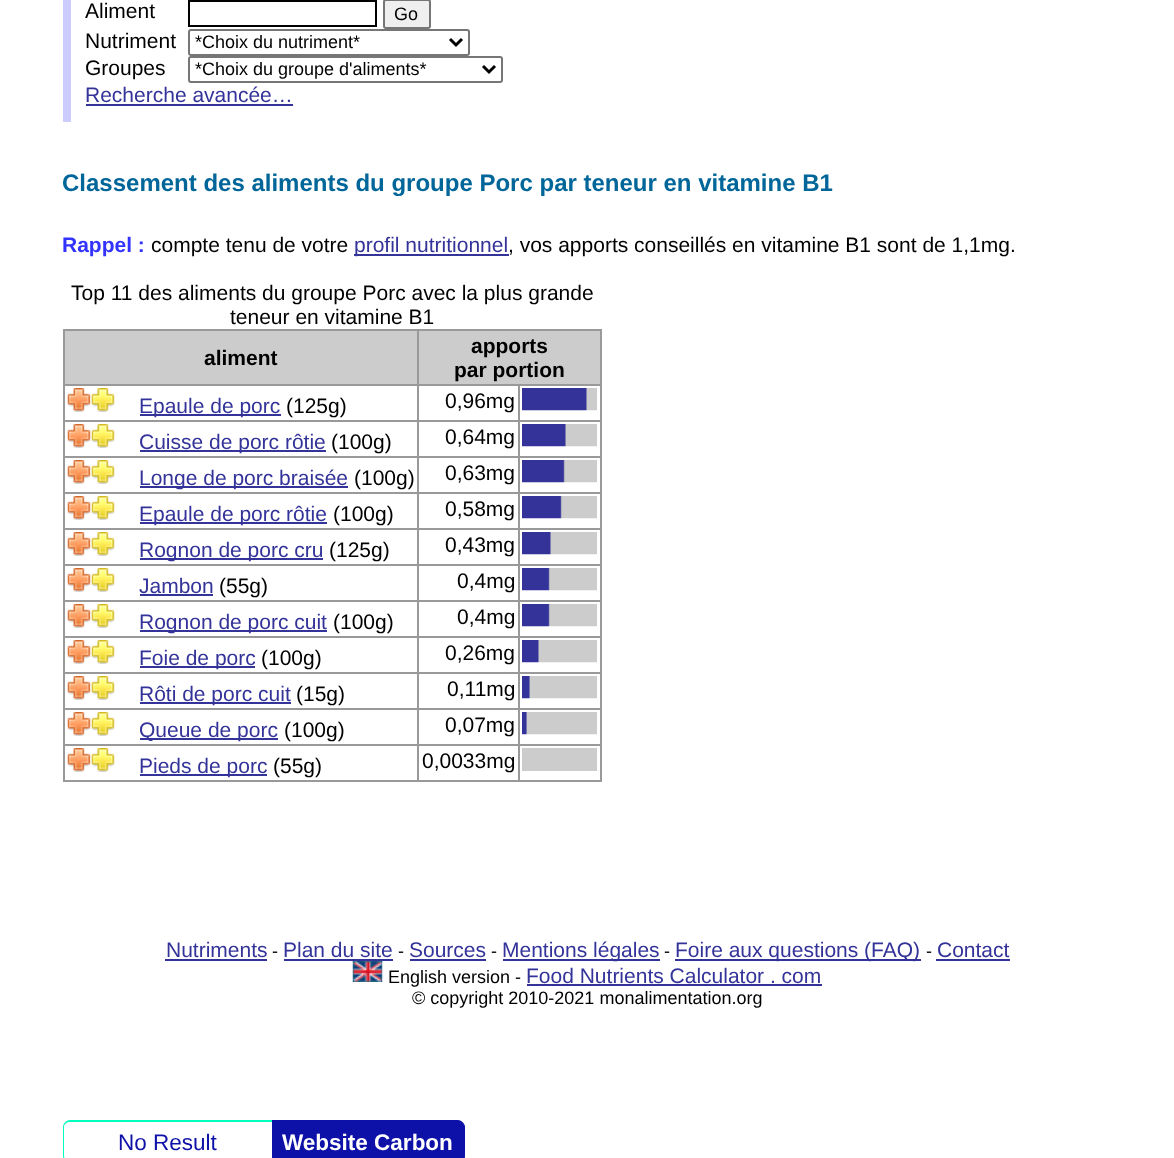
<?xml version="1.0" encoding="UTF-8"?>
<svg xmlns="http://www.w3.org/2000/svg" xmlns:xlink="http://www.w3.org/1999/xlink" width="1174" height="1158">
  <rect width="100%" height="100%" fill="#ffffff" />
  <rect x="63" width="8" height="122" fill="#ccccff" />
  <rect x="189" y="1" width="187" height="25" fill="none" stroke="#000000" stroke-width="2" />
  <rect x="384" y="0" width="46" height="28" rx="2" fill="#efefef" stroke="#767676" stroke-width="2" />
  <rect x="189" y="30" width="280" height="25" rx="2" fill="none" stroke="#767676" stroke-width="2" />
  <path d="M 450 39 l 6 6 l 6 -6" fill="none" stroke="#000000" stroke-width="3" />
  <rect x="189" y="57" width="313" height="25" rx="2" fill="none" stroke="#767676" stroke-width="2" />
  <path d="M 483 66 l 6 6 l 6 -6" fill="none" stroke="#000000" stroke-width="3" />
  <rect x="86" y="104" width="207" height="2" fill="#333399" />
  <rect x="354" y="254" width="155" height="2" fill="#333399" />
  <rect x="65" y="331" width="352" height="53" fill="#cccccc" />
  <rect x="417" y="329" width="185" height="2" fill="#999999" />
  <rect x="518" y="384" width="84" height="2" fill="#999999" />
  <rect x="518" y="420" width="84" height="2" fill="#999999" />
  <rect x="518" y="456" width="84" height="2" fill="#999999" />
  <rect x="518" y="492" width="84" height="2" fill="#999999" />
  <rect x="518" y="528" width="84" height="2" fill="#999999" />
  <rect x="518" y="564" width="84" height="2" fill="#999999" />
  <rect x="518" y="600" width="84" height="2" fill="#999999" />
  <rect x="518" y="636" width="84" height="2" fill="#999999" />
  <rect x="518" y="672" width="84" height="2" fill="#999999" />
  <rect x="518" y="708" width="84" height="2" fill="#999999" />
  <rect x="518" y="744" width="84" height="2" fill="#999999" />
  <rect x="600" y="744" width="2" height="38" fill="#999999" />
  <rect x="518" y="780" width="84" height="2" fill="#999999" />
  <rect x="518" y="744" width="2" height="38" fill="#999999" />
  <rect x="417" y="744" width="102" height="2" fill="#999999" />
  <rect x="518" y="708" width="2" height="38" fill="#999999" />
  <rect x="417" y="708" width="102" height="2" fill="#999999" />
  <rect x="518" y="672" width="2" height="38" fill="#999999" />
  <rect x="417" y="672" width="102" height="2" fill="#999999" />
  <rect x="518" y="636" width="2" height="38" fill="#999999" />
  <rect x="417" y="636" width="102" height="2" fill="#999999" />
  <rect x="518" y="600" width="2" height="38" fill="#999999" />
  <rect x="417" y="600" width="102" height="2" fill="#999999" />
  <rect x="518" y="564" width="2" height="38" fill="#999999" />
  <rect x="417" y="564" width="102" height="2" fill="#999999" />
  <rect x="518" y="528" width="2" height="38" fill="#999999" />
  <rect x="417" y="528" width="102" height="2" fill="#999999" />
  <rect x="518" y="492" width="2" height="38" fill="#999999" />
  <rect x="417" y="492" width="102" height="2" fill="#999999" />
  <rect x="518" y="456" width="2" height="38" fill="#999999" />
  <rect x="417" y="456" width="102" height="2" fill="#999999" />
  <rect x="518" y="420" width="2" height="38" fill="#999999" />
  <rect x="417" y="420" width="102" height="2" fill="#999999" />
  <rect x="518" y="384" width="2" height="38" fill="#999999" />
  <rect x="417" y="384" width="102" height="2" fill="#999999" />
  <rect x="417" y="780" width="102" height="2" fill="#999999" />
  <rect x="417" y="744" width="2" height="38" fill="#999999" />
  <rect x="63" y="744" width="356" height="2" fill="#999999" />
  <rect x="417" y="708" width="2" height="38" fill="#999999" />
  <rect x="63" y="708" width="356" height="2" fill="#999999" />
  <rect x="417" y="672" width="2" height="38" fill="#999999" />
  <rect x="63" y="672" width="356" height="2" fill="#999999" />
  <rect x="417" y="636" width="2" height="38" fill="#999999" />
  <rect x="63" y="636" width="356" height="2" fill="#999999" />
  <rect x="417" y="600" width="2" height="38" fill="#999999" />
  <rect x="63" y="600" width="356" height="2" fill="#999999" />
  <rect x="417" y="564" width="2" height="38" fill="#999999" />
  <rect x="63" y="564" width="356" height="2" fill="#999999" />
  <rect x="417" y="528" width="2" height="38" fill="#999999" />
  <rect x="63" y="528" width="356" height="2" fill="#999999" />
  <rect x="417" y="492" width="2" height="38" fill="#999999" />
  <rect x="63" y="492" width="356" height="2" fill="#999999" />
  <rect x="417" y="456" width="2" height="38" fill="#999999" />
  <rect x="63" y="456" width="356" height="2" fill="#999999" />
  <rect x="417" y="420" width="2" height="38" fill="#999999" />
  <rect x="63" y="420" width="356" height="2" fill="#999999" />
  <rect x="417" y="384" width="2" height="38" fill="#999999" />
  <rect x="63" y="384" width="356" height="2" fill="#999999" />
  <rect x="417" y="329" width="2" height="57" fill="#999999" />
  <rect x="63" y="329" width="356" height="2" fill="#999999" />
  <rect x="63" y="780" width="356" height="2" fill="#999999" />
  <rect x="63" y="744" width="2" height="38" fill="#999999" />
  <rect x="63" y="708" width="2" height="38" fill="#999999" />
  <rect x="63" y="672" width="2" height="38" fill="#999999" />
  <rect x="63" y="636" width="2" height="38" fill="#999999" />
  <rect x="63" y="600" width="2" height="38" fill="#999999" />
  <rect x="63" y="564" width="2" height="38" fill="#999999" />
  <rect x="63" y="528" width="2" height="38" fill="#999999" />
  <rect x="63" y="492" width="2" height="38" fill="#999999" />
  <rect x="63" y="456" width="2" height="38" fill="#999999" />
  <rect x="63" y="420" width="2" height="38" fill="#999999" />
  <rect x="63" y="384" width="2" height="38" fill="#999999" />
  <rect x="63" y="329" width="2" height="57" fill="#999999" />
  <rect x="419" y="331" width="181" height="53" fill="#cccccc" />
  <rect x="600" y="708" width="2" height="38" fill="#999999" />
  <rect x="600" y="672" width="2" height="38" fill="#999999" />
  <rect x="600" y="636" width="2" height="38" fill="#999999" />
  <rect x="600" y="600" width="2" height="38" fill="#999999" />
  <rect x="600" y="564" width="2" height="38" fill="#999999" />
  <rect x="600" y="528" width="2" height="38" fill="#999999" />
  <rect x="600" y="492" width="2" height="38" fill="#999999" />
  <rect x="600" y="456" width="2" height="38" fill="#999999" />
  <rect x="600" y="420" width="2" height="38" fill="#999999" />
  <rect x="600" y="384" width="2" height="38" fill="#999999" />
  <rect x="600" y="329" width="2" height="57" fill="#999999" />
  <image x="67" y="388" width="24" height="24" xlink:href="image1.png" />
  <image x="91" y="388" width="24" height="24" xlink:href="image2.png" />
  <rect x="140" y="414" width="141" height="2" fill="#333399" />
  <image x="522" y="388" width="75" height="23" xlink:href="image3.png" />
  <image x="67" y="424" width="24" height="24" xlink:href="image1.png" />
  <image x="91" y="424" width="24" height="24" xlink:href="image2.png" />
  <rect x="140" y="450" width="186" height="2" fill="#333399" />
  <image x="522" y="424" width="75" height="23" xlink:href="image4.png" />
  <image x="67" y="460" width="24" height="24" xlink:href="image1.png" />
  <image x="91" y="460" width="24" height="24" xlink:href="image2.png" />
  <rect x="140" y="486" width="208" height="2" fill="#333399" />
  <image x="522" y="460" width="75" height="23" xlink:href="image5.png" />
  <image x="67" y="496" width="24" height="24" xlink:href="image1.png" />
  <image x="91" y="496" width="24" height="24" xlink:href="image2.png" />
  <rect x="140" y="522" width="187" height="2" fill="#333399" />
  <image x="522" y="496" width="75" height="23" xlink:href="image6.png" />
  <image x="67" y="532" width="24" height="24" xlink:href="image1.png" />
  <image x="91" y="532" width="24" height="24" xlink:href="image2.png" />
  <rect x="140" y="558" width="183" height="2" fill="#333399" />
  <image x="522" y="532" width="75" height="23" xlink:href="image7.png" />
  <image x="67" y="568" width="24" height="24" xlink:href="image1.png" />
  <image x="91" y="568" width="24" height="24" xlink:href="image2.png" />
  <rect x="140" y="594" width="73" height="2" fill="#333399" />
  <image x="522" y="568" width="75" height="23" xlink:href="image8.png" />
  <image x="67" y="604" width="24" height="24" xlink:href="image1.png" />
  <image x="91" y="604" width="24" height="24" xlink:href="image2.png" />
  <rect x="140" y="630" width="187" height="2" fill="#333399" />
  <image x="522" y="604" width="75" height="23" xlink:href="image8.png" />
  <image x="67" y="640" width="24" height="24" xlink:href="image1.png" />
  <image x="91" y="640" width="24" height="24" xlink:href="image2.png" />
  <rect x="140" y="666" width="115" height="2" fill="#333399" />
  <image x="522" y="640" width="75" height="23" xlink:href="image9.png" />
  <image x="67" y="676" width="24" height="24" xlink:href="image1.png" />
  <image x="91" y="676" width="24" height="24" xlink:href="image2.png" />
  <rect x="140" y="702" width="151" height="2" fill="#333399" />
  <image x="522" y="676" width="75" height="23" xlink:href="image10.png" />
  <image x="67" y="712" width="24" height="24" xlink:href="image1.png" />
  <image x="91" y="712" width="24" height="24" xlink:href="image2.png" />
  <rect x="140" y="738" width="138" height="2" fill="#333399" />
  <image x="522" y="712" width="75" height="23" xlink:href="image11.png" />
  <image x="67" y="748" width="24" height="24" xlink:href="image1.png" />
  <image x="91" y="748" width="24" height="24" xlink:href="image2.png" />
  <rect x="140" y="774" width="127" height="2" fill="#333399" />
  <rect x="522" y="748" width="75" height="23" fill="#cccccc" />
  <rect x="165" y="959" width="102" height="2" fill="#333399" />
  <rect x="284" y="959" width="109" height="2" fill="#333399" />
  <rect x="410" y="959" width="76" height="2" fill="#333399" />
  <rect x="503" y="959" width="157" height="2" fill="#333399" />
  <rect x="675" y="959" width="246" height="2" fill="#333399" />
  <rect x="936" y="959" width="74" height="2" fill="#333399" />
  <image x="352" y="961" width="31" height="21" xlink:href="image12.png" />
  <rect x="527" y="984" width="295" height="2" fill="#333399" />
  <path d="M 70 1120 h 202 v 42 h -202 c -4 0 -7 -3 -7 -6 v -29 c 0 -3 3 -7 7 -7 z m 0 2 h 202 v 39 h -202 c -3 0 -6 -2 -6 -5 v -29 c 0 -3 3 -5 6 -5 z" fill="#00ffbc" fill-rule="evenodd" />
  <path d="M 272 1121 h 185 c 4.5 0 8 3.5 8 8 v 26 c 0 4.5 -3.5 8 -8 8 h -185 z" fill="#0e11a8" />
  <path d="M 272 1120 h 186 c 4 0 7 4 7 7 v 29 c 0 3 -3 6 -7 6 h -186 z m 0 2 h 186 c 3 0 6 2 6 5 v 29 c 0 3 -3 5 -6 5 h -186 z" fill="#0e11a8" fill-rule="evenodd" />
  <text x="85" y="18" style="font-family: Liberation Sans; font-size: 21px; fill: #000000">Aliment</text>
  <text x="394" y="20" style="font-family: Liberation Sans; font-size: 18px; fill: #000000">Go</text>
  <text x="85" y="48" style="font-family: Liberation Sans; font-size: 21px; fill: #000000">Nutriment</text>
  <text x="195" y="48" style="font-family: Liberation Sans; font-size: 18px; fill: #000000">*Choix du nutriment*</text>
  <text x="85" y="75" style="font-family: Liberation Sans; font-size: 21px; fill: #000000">Groupes</text>
  <text x="195" y="75" style="font-family: Liberation Sans; font-size: 18px; fill: #000000">*Choix du groupe d'aliments*</text>
  <text x="85" y="102" style="font-family: Liberation Sans; font-size: 21px; fill: #333399">Recherche avancée…</text>
  <text x="62" y="191" style="font-family: Liberation Sans; font-size: 24px; font-weight: bold; fill: #006699">Classement des aliments du groupe Porc par teneur en vitamine B1</text>
  <text x="62" y="252" style="font-family: Liberation Sans; font-size: 21px; font-weight: bold; fill: #3333ff">Rappel :</text>
  <text x="151" y="252" style="font-family: Liberation Sans; font-size: 21px; fill: #000000">compte tenu de votre</text>
  <text x="354" y="252" style="font-family: Liberation Sans; font-size: 21px; fill: #333399">profil nutritionnel</text>
  <text x="508" y="252" style="font-family: Liberation Sans; font-size: 21px; fill: #000000">, vos apports conseillés en vitamine B1 sont de 1,1mg.</text>
  <text x="71" y="300" style="font-family: Liberation Sans; font-size: 21px; fill: #000000">Top 11 des aliments du groupe Porc avec la plus grande</text>
  <text x="230" y="324" style="font-family: Liberation Sans; font-size: 21px; fill: #000000">teneur en vitamine B1</text>
  <text x="204" y="365" style="font-family: Liberation Sans; font-size: 21px; font-weight: bold; fill: #000000">aliment</text>
  <text x="471" y="353" style="font-family: Liberation Sans; font-size: 21px; font-weight: bold; fill: #000000">apports</text>
  <text x="454" y="377" style="font-family: Liberation Sans; font-size: 21px; font-weight: bold; fill: #000000">par portion</text>
  <text x="139" y="413" style="font-family: Liberation Sans; font-size: 21px; fill: #333399">Epaule de porc</text>
  <text x="286" y="413" style="font-family: Liberation Sans; font-size: 21px; fill: #000000">(125g)</text>
  <text x="445" y="408" style="font-family: Liberation Sans; font-size: 21px; fill: #000000">0,96mg</text>
  <text x="139" y="449" style="font-family: Liberation Sans; font-size: 21px; fill: #333399">Cuisse de porc rôtie</text>
  <text x="331" y="449" style="font-family: Liberation Sans; font-size: 21px; fill: #000000">(100g)</text>
  <text x="445" y="444" style="font-family: Liberation Sans; font-size: 21px; fill: #000000">0,64mg</text>
  <text x="139" y="485" style="font-family: Liberation Sans; font-size: 21px; fill: #333399">Longe de porc braisée</text>
  <text x="354" y="485" style="font-family: Liberation Sans; font-size: 21px; fill: #000000">(100g)</text>
  <text x="445" y="480" style="font-family: Liberation Sans; font-size: 21px; fill: #000000">0,63mg</text>
  <text x="139" y="521" style="font-family: Liberation Sans; font-size: 21px; fill: #333399">Epaule de porc rôtie</text>
  <text x="333" y="521" style="font-family: Liberation Sans; font-size: 21px; fill: #000000">(100g)</text>
  <text x="445" y="516" style="font-family: Liberation Sans; font-size: 21px; fill: #000000">0,58mg</text>
  <text x="139" y="557" style="font-family: Liberation Sans; font-size: 21px; fill: #333399">Rognon de porc cru</text>
  <text x="329" y="557" style="font-family: Liberation Sans; font-size: 21px; fill: #000000">(125g)</text>
  <text x="445" y="552" style="font-family: Liberation Sans; font-size: 21px; fill: #000000">0,43mg</text>
  <text x="139" y="593" style="font-family: Liberation Sans; font-size: 21px; fill: #333399">Jambon</text>
  <text x="219" y="593" style="font-family: Liberation Sans; font-size: 21px; fill: #000000">(55g)</text>
  <text x="457" y="588" style="font-family: Liberation Sans; font-size: 21px; fill: #000000">0,4mg</text>
  <text x="139" y="629" style="font-family: Liberation Sans; font-size: 21px; fill: #333399">Rognon de porc cuit</text>
  <text x="333" y="629" style="font-family: Liberation Sans; font-size: 21px; fill: #000000">(100g)</text>
  <text x="457" y="624" style="font-family: Liberation Sans; font-size: 21px; fill: #000000">0,4mg</text>
  <text x="139" y="665" style="font-family: Liberation Sans; font-size: 21px; fill: #333399">Foie de porc</text>
  <text x="261" y="665" style="font-family: Liberation Sans; font-size: 21px; fill: #000000">(100g)</text>
  <text x="445" y="660" style="font-family: Liberation Sans; font-size: 21px; fill: #000000">0,26mg</text>
  <text x="139" y="701" style="font-family: Liberation Sans; font-size: 21px; fill: #333399">Rôti de porc cuit</text>
  <text x="296" y="701" style="font-family: Liberation Sans; font-size: 21px; fill: #000000">(15g)</text>
  <text x="447" y="696" style="font-family: Liberation Sans; font-size: 21px; fill: #000000">0,11mg</text>
  <text x="139" y="737" style="font-family: Liberation Sans; font-size: 21px; fill: #333399">Queue de porc</text>
  <text x="284" y="737" style="font-family: Liberation Sans; font-size: 21px; fill: #000000">(100g)</text>
  <text x="445" y="732" style="font-family: Liberation Sans; font-size: 21px; fill: #000000">0,07mg</text>
  <text x="139" y="773" style="font-family: Liberation Sans; font-size: 21px; fill: #333399">Pieds de porc</text>
  <text x="273" y="773" style="font-family: Liberation Sans; font-size: 21px; fill: #000000">(55g)</text>
  <text x="422" y="768" style="font-family: Liberation Sans; font-size: 21px; fill: #000000">0,0033mg</text>
  <text x="166" y="957" style="font-family: Liberation Sans; font-size: 21px; fill: #333399">Nutriments</text>
  <text x="272" y="957" style="font-family: Liberation Sans; font-size: 18px; fill: #000000">-</text>
  <text x="283" y="957" style="font-family: Liberation Sans; font-size: 21px; fill: #333399">Plan du site</text>
  <text x="398" y="957" style="font-family: Liberation Sans; font-size: 18px; fill: #000000">-</text>
  <text x="409" y="957" style="font-family: Liberation Sans; font-size: 21px; fill: #333399">Sources</text>
  <text x="491" y="957" style="font-family: Liberation Sans; font-size: 18px; fill: #000000">-</text>
  <text x="502" y="957" style="font-family: Liberation Sans; font-size: 21px; fill: #333399">Mentions légales</text>
  <text x="664" y="957" style="font-family: Liberation Sans; font-size: 18px; fill: #000000">-</text>
  <text x="675" y="957" style="font-family: Liberation Sans; font-size: 21px; fill: #333399">Foire aux questions (FAQ)</text>
  <text x="926" y="957" style="font-family: Liberation Sans; font-size: 18px; fill: #000000">-</text>
  <text x="937" y="957" style="font-family: Liberation Sans; font-size: 21px; fill: #333399">Contact</text>
  <text x="388" y="983" style="font-family: Liberation Sans; font-size: 18px; fill: #000000">English version -</text>
  <text x="526" y="983" style="font-family: Liberation Sans; font-size: 21px; fill: #333399">Food Nutrients Calculator . com</text>
  <text x="412" y="1004" style="font-family: Liberation Sans; font-size: 18px; fill: #000000">© copyright 2010-2021 monalimentation.org</text>
  <text x="118" y="1150" style="font-family: Liberation Sans; font-size: 22.5px; fill: #0e11a8">No Result</text>
  <text x="282" y="1150" style="font-family: Liberation Sans; font-size: 22.5px; font-weight: bold; fill: #ffffff">Website Carbon</text>
</svg>
